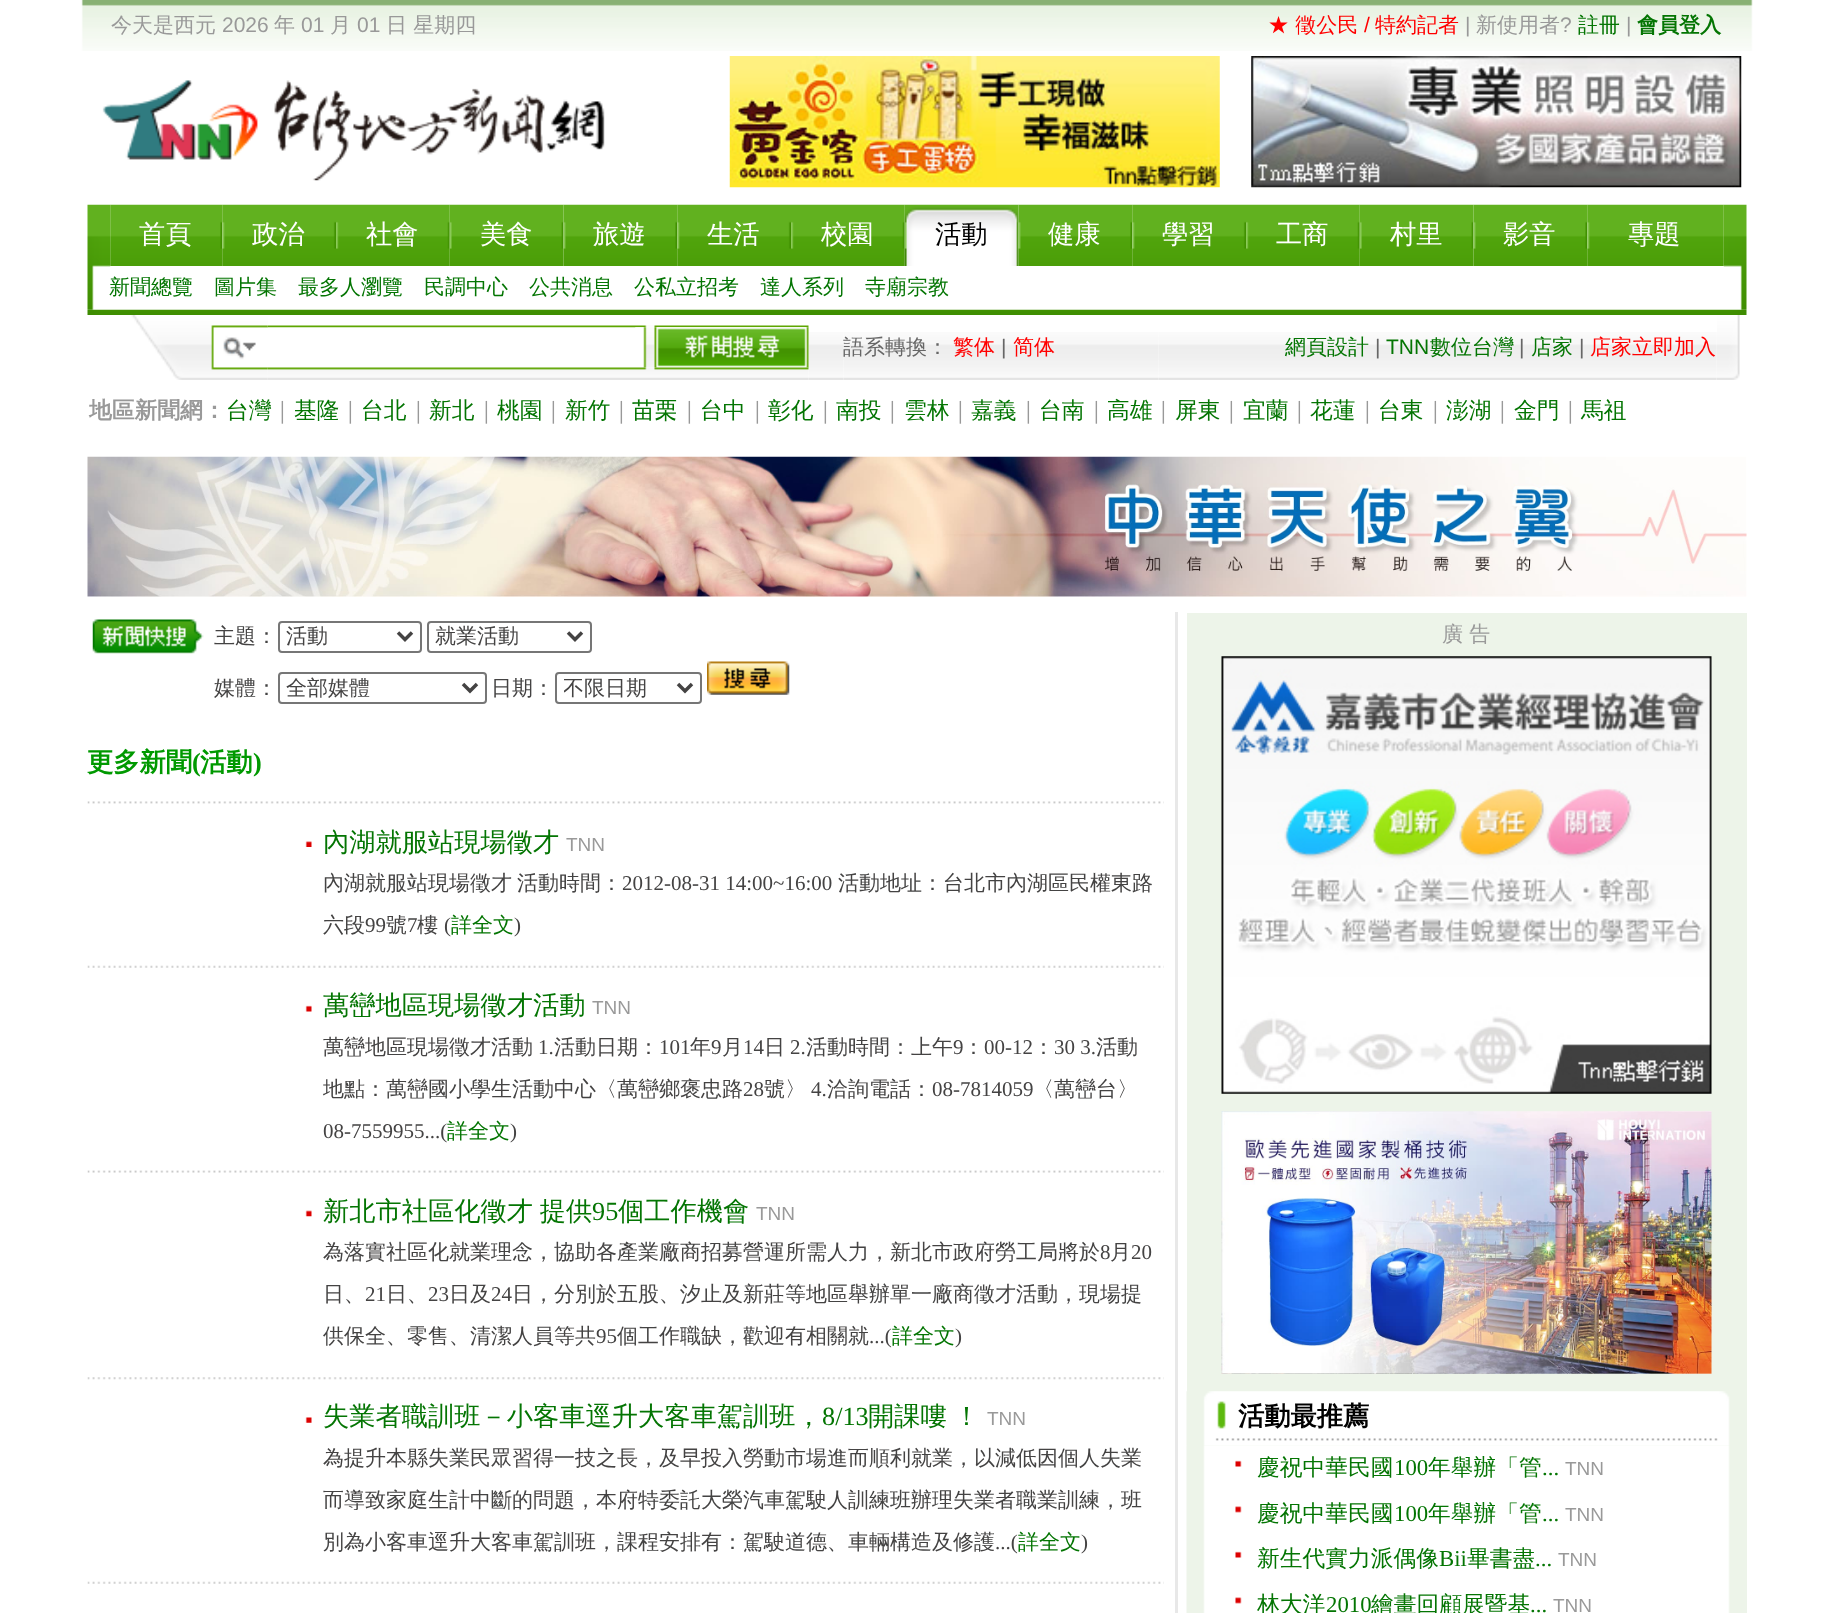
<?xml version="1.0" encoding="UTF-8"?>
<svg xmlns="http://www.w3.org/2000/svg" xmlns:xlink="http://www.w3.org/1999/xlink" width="1831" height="1613">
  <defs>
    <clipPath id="clip1"><rect x="564" y="674" width="108" height="28" /></clipPath>
  </defs>
  <rect width="100%" height="100%" fill="#ffffff" />
  <image x="81" y="0" width="1672" height="51" xlink:href="image1.png" />
  <image x="102" y="80" width="503" height="101" xlink:href="image2.png" />
  <image x="729" y="56" width="491" height="132" xlink:href="image3.png" />
  <image x="1251" y="56" width="491" height="132" xlink:href="image4.png" />
  <image x="110" y="204" width="113" height="62" xlink:href="image6.png" />
  <image x="87" y="204" width="24" height="106" xlink:href="image5.png" />
  <image x="222" y="204" width="114" height="62" xlink:href="image7.png" />
  <image x="336" y="204" width="114" height="62" xlink:href="image8.png" />
  <image x="449" y="204" width="115" height="62" xlink:href="image9.png" />
  <image x="563" y="204" width="115" height="62" xlink:href="image10.png" />
  <image x="677" y="204" width="114" height="62" xlink:href="image7.png" />
  <image x="791" y="204" width="114" height="62" xlink:href="image8.png" />
  <image x="904" y="204" width="115" height="62" xlink:href="image11.png" />
  <image x="1018" y="204" width="115" height="62" xlink:href="image12.png" />
  <image x="1132" y="204" width="114" height="62" xlink:href="image7.png" />
  <image x="1246" y="204" width="114" height="62" xlink:href="image8.png" />
  <image x="1359" y="204" width="115" height="62" xlink:href="image13.png" />
  <image x="1473" y="204" width="115" height="62" xlink:href="image10.png" />
  <image x="1587" y="204" width="137" height="62" xlink:href="image14.png" />
  <image x="1723" y="204" width="24" height="106" xlink:href="image15.png" />
  <image x="87" y="309" width="1660" height="6" xlink:href="image16.png" />
  <image x="131" y="315" width="137" height="65" xlink:href="image17.png" />
  <image x="267" y="325" width="542" height="3" xlink:href="image18.png" />
  <image x="635" y="327" width="20" height="41" xlink:href="image19.png" />
  <image x="808" y="332" width="36" height="48" xlink:href="image22.png" />
  <image x="654" y="327" width="155" height="41" xlink:href="image20.png" />
  <image x="267" y="367" width="542" height="13" xlink:href="image21.png" />
  <image x="843" y="332" width="316" height="48" xlink:href="image23.png" />
  <image x="1158" y="332" width="559" height="48" xlink:href="image24.png" />
  <image x="1717" y="315" width="23" height="65" xlink:href="image25.png" />
  <image x="87" y="456" width="1660" height="141" xlink:href="image26.png" />
  <rect x="1175" y="612" width="3" height="1001" fill="#e8e8e8" />
  <image x="92" y="619" width="112" height="35" xlink:href="image27.png" />
  <rect x="279" y="622" width="142" height="30" rx="3" fill="none" stroke="#767676" stroke-width="2" />
  <path d="M 398 632.5 l 7 7 l 7 -7" fill="none" stroke="#444343" stroke-width="3.5" />
  <rect x="428" y="622" width="163" height="30" rx="3" fill="none" stroke="#767676" stroke-width="2" />
  <path d="M 568 632.5 l 7 7 l 7 -7" fill="none" stroke="#444343" stroke-width="3.5" />
  <rect x="279" y="673" width="207" height="30" rx="3" fill="none" stroke="#767676" stroke-width="2" />
  <path d="M 463 684 l 7 7 l 7 -7" fill="none" stroke="#444343" stroke-width="3.5" />
  <rect x="556" y="673" width="145" height="30" rx="3" fill="none" stroke="#767676" stroke-width="2" />
  <path d="M 678 684 l 7 7 l 7 -7" fill="none" stroke="#444343" stroke-width="3.5" />
  <image x="707" y="661" width="83" height="34" xlink:href="image28.png" />
  <image x="87" y="801" width="1077" height="3" xlink:href="image29.png" />
  <image x="305" y="841" width="7" height="6" xlink:href="image30.png" />
  <image x="87" y="965" width="1077" height="3" xlink:href="image31.png" />
  <image x="305" y="1005" width="7" height="7" xlink:href="image32.png" />
  <image x="87" y="1170" width="1077" height="3" xlink:href="image33.png" />
  <image x="305" y="1210" width="7" height="7" xlink:href="image34.png" />
  <image x="87" y="1377" width="1077" height="3" xlink:href="image35.png" />
  <image x="305" y="1417" width="7" height="6" xlink:href="image36.png" />
  <image x="87" y="1581" width="1077" height="3" xlink:href="image31.png" />
  <rect x="1187" y="613" width="560" height="1000" fill="#edf4e9" />
  <image x="1221" y="656" width="491" height="438" xlink:href="image37.png" />
  <image x="1221" y="1111" width="491" height="263" xlink:href="image38.png" />
  <image x="1186" y="1391" width="544" height="55" xlink:href="image39.png" />
  <image x="1186" y="1445" width="544" height="168" xlink:href="image40.png" />
  <image x="1235" y="1460" width="7" height="7" xlink:href="image41.png" />
  <image x="1235" y="1506" width="7" height="7" xlink:href="image42.png" />
  <image x="1235" y="1551" width="7" height="7" xlink:href="image41.png" />
  <image x="1235" y="1597" width="7" height="7" xlink:href="image42.png" />
  <text x="111" y="32" style="font-family: WenQuanYi Zen Hei; font-size: 21px; font-weight: 500; fill: #999999">今天是西元</text>
  <text x="222" y="32" style="font-family: Liberation Sans; font-size: 21px; fill: #999999">2026</text>
  <text x="274" y="32" style="font-family: WenQuanYi Zen Hei; font-size: 21px; font-weight: 500; fill: #999999">年</text>
  <text x="301" y="32" style="font-family: Liberation Sans; font-size: 21px; fill: #999999">01</text>
  <text x="330" y="32" style="font-family: WenQuanYi Zen Hei; font-size: 21px; font-weight: 500; fill: #999999">月</text>
  <text x="357" y="32" style="font-family: Liberation Sans; font-size: 21px; fill: #999999">01</text>
  <text x="386" y="32" style="font-family: WenQuanYi Zen Hei; font-size: 21px; font-weight: 500; fill: #999999">日 星期四</text>
  <text x="1268" y="32" style="font-family: WenQuanYi Zen Hei; font-size: 21px; font-weight: 500; fill: #ff0000">★ 徵公民</text>
  <text x="1364" y="32" style="font-family: Liberation Sans; font-size: 21px; fill: #ff0000">/</text>
  <text x="1375" y="32" style="font-family: WenQuanYi Zen Hei; font-size: 21px; font-weight: 500; fill: #ff0000">特約記者</text>
  <text x="1465" y="32" style="font-family: Liberation Sans; font-size: 21px; fill: #999999">|</text>
  <text x="1476" y="32" style="font-family: WenQuanYi Zen Hei; font-size: 21px; font-weight: 500; fill: #999999">新使用者</text>
  <text x="1560" y="32" style="font-family: Liberation Sans; font-size: 21px; fill: #999999">?</text>
  <text x="1578" y="32" style="font-family: WenQuanYi Zen Hei; font-size: 21px; font-weight: 500; fill: #047503">註冊</text>
  <text x="1626" y="32" style="font-family: Liberation Sans; font-size: 21px; fill: #999999">|</text>
  <text x="1637" y="32" style="font-family: WenQuanYi Zen Hei; font-size: 21px; font-weight: bold; fill: #047503">會員登入</text>
  <text x="139" y="243" style="font-family: WenQuanYi Zen Hei; font-size: 26.25px; font-weight: 500; fill: #ffffff">首頁</text>
  <text x="252" y="243" style="font-family: WenQuanYi Zen Hei; font-size: 26.25px; font-weight: 500; fill: #ffffff">政治</text>
  <text x="366" y="243" style="font-family: WenQuanYi Zen Hei; font-size: 26.25px; font-weight: 500; fill: #ffffff">社會</text>
  <text x="480" y="243" style="font-family: WenQuanYi Zen Hei; font-size: 26.25px; font-weight: 500; fill: #ffffff">美食</text>
  <text x="593" y="243" style="font-family: WenQuanYi Zen Hei; font-size: 26.25px; font-weight: 500; fill: #ffffff">旅遊</text>
  <text x="707" y="243" style="font-family: WenQuanYi Zen Hei; font-size: 26.25px; font-weight: 500; fill: #ffffff">生活</text>
  <text x="821" y="243" style="font-family: WenQuanYi Zen Hei; font-size: 26.25px; font-weight: 500; fill: #ffffff">校園</text>
  <text x="935" y="243" style="font-family: WenQuanYi Zen Hei; font-size: 26.25px; font-weight: 500; fill: #000000">活動</text>
  <text x="1048" y="243" style="font-family: WenQuanYi Zen Hei; font-size: 26.25px; font-weight: 500; fill: #ffffff">健康</text>
  <text x="1162" y="243" style="font-family: WenQuanYi Zen Hei; font-size: 26.25px; font-weight: 500; fill: #ffffff">學習</text>
  <text x="1276" y="243" style="font-family: WenQuanYi Zen Hei; font-size: 26.25px; font-weight: 500; fill: #ffffff">工商</text>
  <text x="1390" y="243" style="font-family: WenQuanYi Zen Hei; font-size: 26.25px; font-weight: 500; fill: #ffffff">村里</text>
  <text x="1503" y="243" style="font-family: WenQuanYi Zen Hei; font-size: 26.25px; font-weight: 500; fill: #ffffff">影音</text>
  <text x="1628" y="243" style="font-family: WenQuanYi Zen Hei; font-size: 26.25px; font-weight: 500; fill: #ffffff">專題</text>
  <text x="109" y="294" style="font-family: WenQuanYi Zen Hei; font-size: 21px; font-weight: 500; fill: #047503">新聞總覽</text>
  <text x="214" y="294" style="font-family: WenQuanYi Zen Hei; font-size: 21px; font-weight: 500; fill: #047503">圖片集</text>
  <text x="298" y="294" style="font-family: WenQuanYi Zen Hei; font-size: 21px; font-weight: 500; fill: #047503">最多人瀏覽</text>
  <text x="424" y="294" style="font-family: WenQuanYi Zen Hei; font-size: 21px; font-weight: 500; fill: #047503">民調中心</text>
  <text x="529" y="294" style="font-family: WenQuanYi Zen Hei; font-size: 21px; font-weight: 500; fill: #047503">公共消息</text>
  <text x="634" y="294" style="font-family: WenQuanYi Zen Hei; font-size: 21px; font-weight: 500; fill: #047503">公私立招考</text>
  <text x="760" y="294" style="font-family: WenQuanYi Zen Hei; font-size: 21px; font-weight: 500; fill: #047503">達人系列</text>
  <text x="865" y="294" style="font-family: WenQuanYi Zen Hei; font-size: 21px; font-weight: 500; fill: #047503">寺廟宗教</text>
  <text x="843" y="354" style="font-family: WenQuanYi Zen Hei; font-size: 21px; font-weight: 500; fill: #666666">語系轉換：</text>
  <text x="953" y="354" style="font-family: WenQuanYi Zen Hei; font-size: 21px; font-weight: 500; fill: #ff0000">繁体</text>
  <text x="1001" y="354" style="font-family: Liberation Sans; font-size: 21px; fill: #666666">|</text>
  <text x="1013" y="354" style="font-family: WenQuanYi Zen Hei; font-size: 21px; font-weight: 500; fill: #ff0000">简体</text>
  <text x="1285" y="354" style="font-family: WenQuanYi Zen Hei; font-size: 21px; font-weight: 500; fill: #047503">網頁設計</text>
  <text x="1375" y="354" style="font-family: Liberation Sans; font-size: 21px; fill: #666666">|</text>
  <text x="1386" y="354" style="font-family: Liberation Sans; font-size: 21px; fill: #047503">TNN</text>
  <text x="1430" y="354" style="font-family: WenQuanYi Zen Hei; font-size: 21px; font-weight: 500; fill: #047503">數位台灣</text>
  <text x="1519" y="354" style="font-family: Liberation Sans; font-size: 21px; fill: #666666">|</text>
  <text x="1531" y="354" style="font-family: WenQuanYi Zen Hei; font-size: 21px; font-weight: 500; fill: #047503">店家</text>
  <text x="1579" y="354" style="font-family: Liberation Sans; font-size: 21px; fill: #666666">|</text>
  <text x="1590" y="354" style="font-family: WenQuanYi Zen Hei; font-size: 21px; font-weight: 500; fill: #ff0000">店家立即加入</text>
  <text x="89" y="418" style="font-family: WenQuanYi Zen Hei; font-size: 22.75px; font-weight: bold; fill: #999999">地區新聞網：</text>
  <text x="226" y="418" style="font-family: WenQuanYi Zen Hei; font-size: 22.75px; font-weight: 500; fill: #047503">台灣</text>
  <text x="271" y="418" style="font-family: WenQuanYi Zen Hei; font-size: 22.75px; font-weight: 500; fill: #999999">｜</text>
  <text x="294" y="418" style="font-family: WenQuanYi Zen Hei; font-size: 22.75px; font-weight: 500; fill: #047503">基隆</text>
  <text x="339" y="418" style="font-family: WenQuanYi Zen Hei; font-size: 22.75px; font-weight: 500; fill: #999999">｜</text>
  <text x="361" y="418" style="font-family: WenQuanYi Zen Hei; font-size: 22.75px; font-weight: 500; fill: #047503">台北</text>
  <text x="407" y="418" style="font-family: WenQuanYi Zen Hei; font-size: 22.75px; font-weight: 500; fill: #999999">｜</text>
  <text x="429" y="418" style="font-family: WenQuanYi Zen Hei; font-size: 22.75px; font-weight: 500; fill: #047503">新北</text>
  <text x="475" y="418" style="font-family: WenQuanYi Zen Hei; font-size: 22.75px; font-weight: 500; fill: #999999">｜</text>
  <text x="497" y="418" style="font-family: WenQuanYi Zen Hei; font-size: 22.75px; font-weight: 500; fill: #047503">桃園</text>
  <text x="542" y="418" style="font-family: WenQuanYi Zen Hei; font-size: 22.75px; font-weight: 500; fill: #999999">｜</text>
  <text x="565" y="418" style="font-family: WenQuanYi Zen Hei; font-size: 22.75px; font-weight: 500; fill: #047503">新竹</text>
  <text x="610" y="418" style="font-family: WenQuanYi Zen Hei; font-size: 22.75px; font-weight: 500; fill: #999999">｜</text>
  <text x="632" y="418" style="font-family: WenQuanYi Zen Hei; font-size: 22.75px; font-weight: 500; fill: #047503">苗栗</text>
  <text x="678" y="418" style="font-family: WenQuanYi Zen Hei; font-size: 22.75px; font-weight: 500; fill: #999999">｜</text>
  <text x="700" y="418" style="font-family: WenQuanYi Zen Hei; font-size: 22.75px; font-weight: 500; fill: #047503">台中</text>
  <text x="746" y="418" style="font-family: WenQuanYi Zen Hei; font-size: 22.75px; font-weight: 500; fill: #999999">｜</text>
  <text x="768" y="418" style="font-family: WenQuanYi Zen Hei; font-size: 22.75px; font-weight: 500; fill: #047503">彰化</text>
  <text x="814" y="418" style="font-family: WenQuanYi Zen Hei; font-size: 22.75px; font-weight: 500; fill: #999999">｜</text>
  <text x="836" y="418" style="font-family: WenQuanYi Zen Hei; font-size: 22.75px; font-weight: 500; fill: #047503">南投</text>
  <text x="881" y="418" style="font-family: WenQuanYi Zen Hei; font-size: 22.75px; font-weight: 500; fill: #999999">｜</text>
  <text x="904" y="418" style="font-family: WenQuanYi Zen Hei; font-size: 22.75px; font-weight: 500; fill: #047503">雲林</text>
  <text x="949" y="418" style="font-family: WenQuanYi Zen Hei; font-size: 22.75px; font-weight: 500; fill: #999999">｜</text>
  <text x="971" y="418" style="font-family: WenQuanYi Zen Hei; font-size: 22.75px; font-weight: 500; fill: #047503">嘉義</text>
  <text x="1017" y="418" style="font-family: WenQuanYi Zen Hei; font-size: 22.75px; font-weight: 500; fill: #999999">｜</text>
  <text x="1039" y="418" style="font-family: WenQuanYi Zen Hei; font-size: 22.75px; font-weight: 500; fill: #047503">台南</text>
  <text x="1085" y="418" style="font-family: WenQuanYi Zen Hei; font-size: 22.75px; font-weight: 500; fill: #999999">｜</text>
  <text x="1107" y="418" style="font-family: WenQuanYi Zen Hei; font-size: 22.75px; font-weight: 500; fill: #047503">高雄</text>
  <text x="1152" y="418" style="font-family: WenQuanYi Zen Hei; font-size: 22.75px; font-weight: 500; fill: #999999">｜</text>
  <text x="1175" y="418" style="font-family: WenQuanYi Zen Hei; font-size: 22.75px; font-weight: 500; fill: #047503">屏東</text>
  <text x="1220" y="418" style="font-family: WenQuanYi Zen Hei; font-size: 22.75px; font-weight: 500; fill: #999999">｜</text>
  <text x="1243" y="418" style="font-family: WenQuanYi Zen Hei; font-size: 22.75px; font-weight: 500; fill: #047503">宜蘭</text>
  <text x="1288" y="418" style="font-family: WenQuanYi Zen Hei; font-size: 22.75px; font-weight: 500; fill: #999999">｜</text>
  <text x="1310" y="418" style="font-family: WenQuanYi Zen Hei; font-size: 22.75px; font-weight: 500; fill: #047503">花蓮</text>
  <text x="1356" y="418" style="font-family: WenQuanYi Zen Hei; font-size: 22.75px; font-weight: 500; fill: #999999">｜</text>
  <text x="1378" y="418" style="font-family: WenQuanYi Zen Hei; font-size: 22.75px; font-weight: 500; fill: #047503">台東</text>
  <text x="1424" y="418" style="font-family: WenQuanYi Zen Hei; font-size: 22.75px; font-weight: 500; fill: #999999">｜</text>
  <text x="1446" y="418" style="font-family: WenQuanYi Zen Hei; font-size: 22.75px; font-weight: 500; fill: #047503">澎湖</text>
  <text x="1491" y="418" style="font-family: WenQuanYi Zen Hei; font-size: 22.75px; font-weight: 500; fill: #999999">｜</text>
  <text x="1514" y="418" style="font-family: WenQuanYi Zen Hei; font-size: 22.75px; font-weight: 500; fill: #047503">金門</text>
  <text x="1559" y="418" style="font-family: WenQuanYi Zen Hei; font-size: 22.75px; font-weight: 500; fill: #999999">｜</text>
  <text x="1581" y="418" style="font-family: WenQuanYi Zen Hei; font-size: 22.75px; font-weight: 500; fill: #047503">馬祖</text>
  <text x="214" y="643" style="font-family: WenQuanYi Zen Hei; font-size: 21px; font-weight: 500; fill: #444343">主題：</text>
  <text x="286" y="643" style="font-family: WenQuanYi Zen Hei; font-size: 21px; font-weight: 500; fill: #444343">活動</text>
  <text x="435" y="643" style="font-family: WenQuanYi Zen Hei; font-size: 21px; font-weight: 500; fill: #444343">就業活動</text>
  <text x="214" y="695" style="font-family: WenQuanYi Zen Hei; font-size: 21px; font-weight: 500; fill: #444343">媒體：</text>
  <text x="286" y="695" style="font-family: WenQuanYi Zen Hei; font-size: 21px; font-weight: 500; fill: #444343">全部媒體</text>
  <text x="491" y="695" style="font-family: WenQuanYi Zen Hei; font-size: 21px; font-weight: 500; fill: #444343">日期：</text>
  <g clip-path="url(#clip1)">
    <text x="563" y="695" style="font-family: WenQuanYi Zen Hei; font-size: 21px; font-weight: 500; fill: #444343">不限日期</text>
  </g>
  <text x="87" y="771" style="font-family: WenQuanYi Zen Hei; font-size: 26.25px; font-weight: bold; fill: #009900">更多新聞</text>
  <text x="192" y="771" style="font-family: Liberation Serif; font-size: 26.25px; font-weight: bold; fill: #009900">(</text>
  <text x="200" y="771" style="font-family: WenQuanYi Zen Hei; font-size: 26.25px; font-weight: bold; fill: #009900">活動</text>
  <text x="253" y="771" style="font-family: Liberation Serif; font-size: 26.25px; font-weight: bold; fill: #009900">)</text>
  <text x="323" y="851" style="font-family: WenQuanYi Zen Hei; font-size: 26.25px; font-weight: 500; fill: #047503">內湖就服站現場徵才</text>
  <text x="566" y="851" style="font-family: Liberation Sans; font-size: 19px; fill: #999999">TNN</text>
  <text x="323" y="890" style="font-family: WenQuanYi Zen Hei; font-size: 21px; font-weight: 500; fill: #444343">內湖就服站現場徵才</text>
  <text x="517" y="890" style="font-family: WenQuanYi Zen Hei; font-size: 21px; font-weight: 500; fill: #444343">活動時間：</text>
  <text x="622" y="890" style="font-family: Liberation Serif; font-size: 21px; fill: #444343">2012-08-31 14:00~16:00</text>
  <text x="838" y="890" style="font-family: WenQuanYi Zen Hei; font-size: 21px; font-weight: 500; fill: #444343">活動地址：台北市內湖區民權東路</text>
  <text x="323" y="932" style="font-family: WenQuanYi Zen Hei; font-size: 21px; font-weight: 500; fill: #444343">六段</text>
  <text x="365" y="932" style="font-family: Liberation Serif; font-size: 21px; fill: #444343">99</text>
  <text x="386" y="932" style="font-family: WenQuanYi Zen Hei; font-size: 21px; font-weight: 500; fill: #444343">號</text>
  <text x="407" y="932" style="font-family: Liberation Serif; font-size: 21px; fill: #444343">7</text>
  <text x="417" y="932" style="font-family: WenQuanYi Zen Hei; font-size: 21px; font-weight: 500; fill: #444343">樓</text>
  <text x="444" y="932" style="font-family: Liberation Serif; font-size: 21px; fill: #444343">(</text>
  <text x="451" y="932" style="font-family: WenQuanYi Zen Hei; font-size: 21px; font-weight: 500; fill: #047503">詳全文</text>
  <text x="514" y="932" style="font-family: Liberation Serif; font-size: 21px; fill: #444343">)</text>
  <text x="323" y="1014" style="font-family: WenQuanYi Zen Hei; font-size: 26.25px; font-weight: 500; fill: #047503">萬巒地區現場徵才活動</text>
  <text x="592" y="1014" style="font-family: Liberation Sans; font-size: 19px; fill: #999999">TNN</text>
  <text x="323" y="1054" style="font-family: WenQuanYi Zen Hei; font-size: 21px; font-weight: 500; fill: #444343">萬巒地區現場徵才活動</text>
  <text x="538" y="1054" style="font-family: Liberation Serif; font-size: 21px; fill: #444343">1.</text>
  <text x="554" y="1054" style="font-family: WenQuanYi Zen Hei; font-size: 21px; font-weight: 500; fill: #444343">活動日期：</text>
  <text x="659" y="1054" style="font-family: Liberation Serif; font-size: 21px; fill: #444343">101</text>
  <text x="690" y="1054" style="font-family: WenQuanYi Zen Hei; font-size: 21px; font-weight: 500; fill: #444343">年</text>
  <text x="711" y="1054" style="font-family: Liberation Serif; font-size: 21px; fill: #444343">9</text>
  <text x="722" y="1054" style="font-family: WenQuanYi Zen Hei; font-size: 21px; font-weight: 500; fill: #444343">月</text>
  <text x="743" y="1054" style="font-family: Liberation Serif; font-size: 21px; fill: #444343">14</text>
  <text x="764" y="1054" style="font-family: WenQuanYi Zen Hei; font-size: 21px; font-weight: 500; fill: #444343">日</text>
  <text x="790" y="1054" style="font-family: Liberation Serif; font-size: 21px; fill: #444343">2.</text>
  <text x="806" y="1054" style="font-family: WenQuanYi Zen Hei; font-size: 21px; font-weight: 500; fill: #444343">活動時間：上午</text>
  <text x="953" y="1054" style="font-family: Liberation Serif; font-size: 21px; fill: #444343">9</text>
  <text x="963" y="1054" style="font-family: WenQuanYi Zen Hei; font-size: 21px; font-weight: 500; fill: #444343">：</text>
  <text x="984" y="1054" style="font-family: Liberation Serif; font-size: 21px; fill: #444343">00-12</text>
  <text x="1033" y="1054" style="font-family: WenQuanYi Zen Hei; font-size: 21px; font-weight: 500; fill: #444343">：</text>
  <text x="1054" y="1054" style="font-family: Liberation Serif; font-size: 21px; fill: #444343">30 3.</text>
  <text x="1096" y="1054" style="font-family: WenQuanYi Zen Hei; font-size: 21px; font-weight: 500; fill: #444343">活動</text>
  <text x="323" y="1096" style="font-family: WenQuanYi Zen Hei; font-size: 21px; font-weight: 500; fill: #444343">地點：萬巒國小學生活動中心〈萬巒鄉褒忠路</text>
  <text x="743" y="1096" style="font-family: Liberation Serif; font-size: 21px; fill: #444343">28</text>
  <text x="764" y="1096" style="font-family: WenQuanYi Zen Hei; font-size: 21px; font-weight: 500; fill: #444343">號〉</text>
  <text x="811" y="1096" style="font-family: Liberation Serif; font-size: 21px; fill: #444343">4.</text>
  <text x="827" y="1096" style="font-family: WenQuanYi Zen Hei; font-size: 21px; font-weight: 500; fill: #444343">洽詢電話：</text>
  <text x="932" y="1096" style="font-family: Liberation Serif; font-size: 21px; fill: #444343">08-7814059</text>
  <text x="1033" y="1096" style="font-family: WenQuanYi Zen Hei; font-size: 21px; font-weight: 500; fill: #444343">〈萬巒台〉</text>
  <text x="323" y="1138" style="font-family: Liberation Serif; font-size: 21px; fill: #444343">08-7559955...(</text>
  <text x="447" y="1138" style="font-family: WenQuanYi Zen Hei; font-size: 21px; font-weight: 500; fill: #047503">詳全文</text>
  <text x="510" y="1138" style="font-family: Liberation Serif; font-size: 21px; fill: #444343">)</text>
  <text x="323" y="1220" word-spacing="-1" style="font-family: WenQuanYi Zen Hei; font-size: 26.25px; font-weight: 500; fill: #047503">新北市社區化徵才 提供</text>
  <text x="592" y="1220" style="font-family: Liberation Serif; font-size: 26.25px; fill: #047503">95</text>
  <text x="618" y="1220" style="font-family: WenQuanYi Zen Hei; font-size: 26.25px; font-weight: 500; fill: #047503">個工作機會</text>
  <text x="756" y="1220" style="font-family: Liberation Sans; font-size: 19px; fill: #999999">TNN</text>
  <text x="323" y="1259" style="font-family: WenQuanYi Zen Hei; font-size: 21px; font-weight: 500; fill: #444343">為落實社區化就業理念，協助各產業廠商招募營運所需人力，新北市政府勞工局將於</text>
  <text x="1100" y="1259" style="font-family: Liberation Serif; font-size: 21px; fill: #444343">8</text>
  <text x="1110" y="1259" style="font-family: WenQuanYi Zen Hei; font-size: 21px; font-weight: 500; fill: #444343">月</text>
  <text x="1131" y="1259" style="font-family: Liberation Serif; font-size: 21px; fill: #444343">20</text>
  <text x="323" y="1301" style="font-family: WenQuanYi Zen Hei; font-size: 21px; font-weight: 500; fill: #444343">日、</text>
  <text x="365" y="1301" style="font-family: Liberation Serif; font-size: 21px; fill: #444343">21</text>
  <text x="386" y="1301" style="font-family: WenQuanYi Zen Hei; font-size: 21px; font-weight: 500; fill: #444343">日、</text>
  <text x="428" y="1301" style="font-family: Liberation Serif; font-size: 21px; fill: #444343">23</text>
  <text x="449" y="1301" style="font-family: WenQuanYi Zen Hei; font-size: 21px; font-weight: 500; fill: #444343">日及</text>
  <text x="491" y="1301" style="font-family: Liberation Serif; font-size: 21px; fill: #444343">24</text>
  <text x="512" y="1301" style="font-family: WenQuanYi Zen Hei; font-size: 21px; font-weight: 500; fill: #444343">日，分別於五股、汐止及新莊等地區舉辦單一廠商徵才活動，現場提</text>
  <text x="323" y="1343" style="font-family: WenQuanYi Zen Hei; font-size: 21px; font-weight: 500; fill: #444343">供保全、零售、清潔人員等共</text>
  <text x="596" y="1343" style="font-family: Liberation Serif; font-size: 21px; fill: #444343">95</text>
  <text x="617" y="1343" style="font-family: WenQuanYi Zen Hei; font-size: 21px; font-weight: 500; fill: #444343">個工作職缺，歡迎有相關就</text>
  <text x="869" y="1343" style="font-family: Liberation Serif; font-size: 21px; fill: #444343">...(</text>
  <text x="892" y="1343" style="font-family: WenQuanYi Zen Hei; font-size: 21px; font-weight: 500; fill: #047503">詳全文</text>
  <text x="955" y="1343" style="font-family: Liberation Serif; font-size: 21px; fill: #444343">)</text>
  <text x="323" y="1425" style="font-family: WenQuanYi Zen Hei; font-size: 26.25px; font-weight: 500; fill: #047503">失業者職訓班－小客車逕升大客車駕訓班，</text>
  <text x="822" y="1425" style="font-family: Liberation Serif; font-size: 26.25px; fill: #047503">8/13</text>
  <text x="868" y="1425" word-spacing="-1" style="font-family: WenQuanYi Zen Hei; font-size: 26.25px; font-weight: 500; fill: #047503">開課嘍 ！</text>
  <text x="987" y="1425" style="font-family: Liberation Sans; font-size: 19px; fill: #999999">TNN</text>
  <text x="323" y="1465" style="font-family: WenQuanYi Zen Hei; font-size: 21px; font-weight: 500; fill: #444343">為提升本縣失業民眾習得一技之長，及早投入勞動市場進而順利就業，以減低因個人失業</text>
  <text x="323" y="1507" style="font-family: WenQuanYi Zen Hei; font-size: 21px; font-weight: 500; fill: #444343">而導致家庭生計中斷的問題，本府特委託大榮汽車駕駛人訓練班辦理失業者職業訓練，班</text>
  <text x="323" y="1549" style="font-family: WenQuanYi Zen Hei; font-size: 21px; font-weight: 500; fill: #444343">別為小客車逕升大客車駕訓班，課程安排有：駕駛道德、車輛構造及修護</text>
  <text x="995" y="1549" style="font-family: Liberation Serif; font-size: 21px; fill: #444343">...(</text>
  <text x="1018" y="1549" style="font-family: WenQuanYi Zen Hei; font-size: 21px; font-weight: 500; fill: #047503">詳全文</text>
  <text x="1081" y="1549" style="font-family: Liberation Serif; font-size: 21px; fill: #444343">)</text>
  <text x="1442" y="641" style="font-family: WenQuanYi Zen Hei; font-size: 21px; font-weight: 500; fill: #999999">廣 告</text>
  <text x="1238" y="1425" style="font-family: WenQuanYi Zen Hei; font-size: 26.25px; font-weight: bold; fill: #000000">活動最推薦</text>
  <text x="1257" y="1475" style="font-family: WenQuanYi Zen Hei; font-size: 22.75px; font-weight: 500; fill: #047503">慶祝中華民國</text>
  <text x="1394" y="1475" style="font-family: Liberation Serif; font-size: 22.75px; fill: #047503">100</text>
  <text x="1428" y="1475" style="font-family: WenQuanYi Zen Hei; font-size: 22.75px; font-weight: 500; fill: #047503">年舉辦「管</text>
  <text x="1542" y="1475" style="font-family: Liberation Serif; font-size: 22.75px; fill: #047503">...</text>
  <text x="1565" y="1475" style="font-family: Liberation Sans; font-size: 19px; fill: #999999">TNN</text>
  <text x="1257" y="1521" style="font-family: WenQuanYi Zen Hei; font-size: 22.75px; font-weight: 500; fill: #047503">慶祝中華民國</text>
  <text x="1394" y="1521" style="font-family: Liberation Serif; font-size: 22.75px; fill: #047503">100</text>
  <text x="1428" y="1521" style="font-family: WenQuanYi Zen Hei; font-size: 22.75px; font-weight: 500; fill: #047503">年舉辦「管</text>
  <text x="1542" y="1521" style="font-family: Liberation Serif; font-size: 22.75px; fill: #047503">...</text>
  <text x="1565" y="1521" style="font-family: Liberation Sans; font-size: 19px; fill: #999999">TNN</text>
  <text x="1257" y="1566" style="font-family: WenQuanYi Zen Hei; font-size: 22.75px; font-weight: 500; fill: #047503">新生代實力派偶像</text>
  <text x="1439" y="1566" style="font-family: Liberation Serif; font-size: 22.75px; fill: #047503">Bii</text>
  <text x="1467" y="1566" style="font-family: WenQuanYi Zen Hei; font-size: 22.75px; font-weight: 500; fill: #047503">畢書盡</text>
  <text x="1535" y="1566" style="font-family: Liberation Serif; font-size: 22.75px; fill: #047503">...</text>
  <text x="1558" y="1566" style="font-family: Liberation Sans; font-size: 19px; fill: #999999">TNN</text>
  <text x="1257" y="1612" style="font-family: WenQuanYi Zen Hei; font-size: 22.75px; font-weight: 500; fill: #047503">林大洋</text>
  <text x="1326" y="1612" style="font-family: Liberation Serif; font-size: 22.75px; fill: #047503">2010</text>
  <text x="1371" y="1612" style="font-family: WenQuanYi Zen Hei; font-size: 22.75px; font-weight: 500; fill: #047503">繪畫回顧展暨基</text>
  <text x="1530" y="1612" style="font-family: Liberation Serif; font-size: 22.75px; fill: #047503">...</text>
  <text x="1553" y="1612" style="font-family: Liberation Sans; font-size: 19px; fill: #999999">TNN</text>
</svg>
